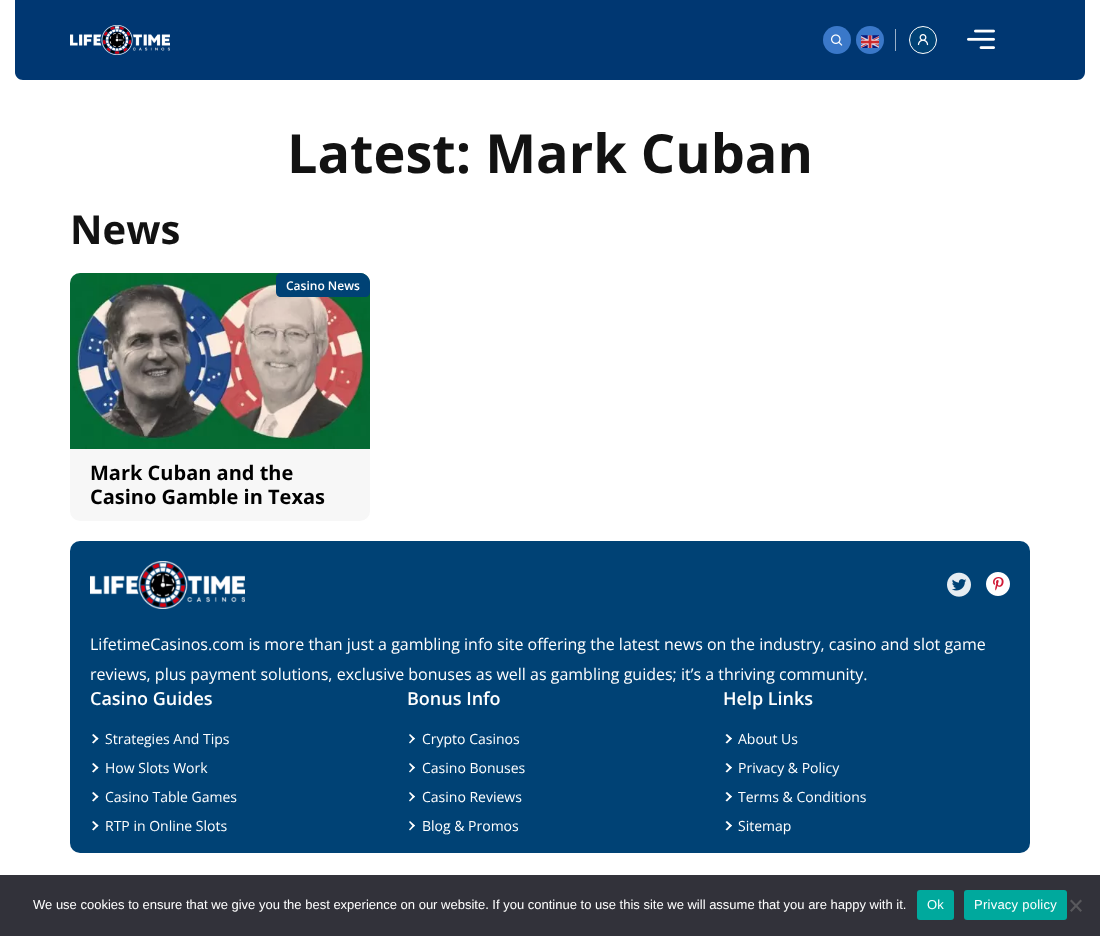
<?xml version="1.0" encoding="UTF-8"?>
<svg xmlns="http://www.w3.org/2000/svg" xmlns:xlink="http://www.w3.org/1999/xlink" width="1100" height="936">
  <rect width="100%" height="100%" fill="#ffffff" />
  <path d="M 15 0 h 1070 v 72 c 0 4.5 -3.5 8 -8 8 h -1054 c -4.5 0 -8 -3.5 -8 -8 z" fill="#003772" />
  <image x="70" y="25" width="100" height="30" xlink:href="image1.png" />
  <circle cx="837" cy="40" r="14" fill="#3a78c9" />
  <image x="831" y="34" width="12" height="12" xlink:href="image2.png" />
  <circle cx="870" cy="40" r="14" fill="#3a78c9" />
  <image x="861" y="35" width="18" height="13" xlink:href="image3.png" />
  <circle cx="923" cy="40" r="13.5" fill="#004275" stroke="#ffffff" />
  <rect x="895" y="29" width="1" height="22" fill="#99afc7" />
  <image x="917" y="34" width="12" height="12" xlink:href="image4.png" />
  <image x="967" y="29" width="28" height="20" xlink:href="image5.png" />
  <rect x="70" y="273" width="300" height="248" rx="10" fill="#f7f7f7" />
  <image x="70" y="273" width="300" height="176" xlink:href="image6.png" />
  <path d="M 281 273 h 79 c 5.5 0 10 4.5 10 10 v 9 c 0 3 -2 5 -5 5 h -84 c -3 0 -5 -2 -5 -5 v -14 c 0 -3 2 -5 5 -5 z" fill="#004275" />
  <rect x="70" y="541" width="960" height="312" rx="10" fill="#004275" />
  <image x="90" y="561" width="155" height="48" xlink:href="image7.png" />
  <image x="947" y="572" width="24" height="25" xlink:href="image8.png" />
  <image x="986" y="572" width="24" height="24" xlink:href="image9.png" />
  <path d="M 93.5 734 l 5 4.5 l -1.5 1.5 l -5 -5 z" fill="#ffffff" />
  <path d="M 97 737.5 l 1.5 1 l -5 5 l -1.5 -1 z" fill="#ffffff" />
  <path d="M 93.5 763 l 5 4.5 l -1.5 1.5 l -5 -5 z" fill="#ffffff" />
  <path d="M 97 766.5 l 1.5 1 l -5 5 l -1.5 -1 z" fill="#ffffff" />
  <path d="M 93.5 792 l 5 4.5 l -1.5 1.5 l -5 -5 z" fill="#ffffff" />
  <path d="M 97 795.5 l 1.5 1 l -5 5 l -1.5 -1 z" fill="#ffffff" />
  <path d="M 93.5 821 l 5 4.5 l -1.5 1.5 l -5 -5 z" fill="#ffffff" />
  <path d="M 97 824.5 l 1.5 1 l -5 5 l -1.5 -1 z" fill="#ffffff" />
  <path d="M 410 734 l 5 4.5 l -1.5 1.5 l -4.5 -5 z" fill="#ffffff" />
  <path d="M 413.5 737.5 l 1.5 1 l -5 5 l -1 -1 z" fill="#ffffff" />
  <path d="M 410 763 l 5 4.5 l -1.5 1.5 l -4.5 -5 z" fill="#ffffff" />
  <path d="M 413.5 766.5 l 1.5 1 l -5 5 l -1 -1 z" fill="#ffffff" />
  <path d="M 410 792 l 5 4.5 l -1.5 1.5 l -4.5 -5 z" fill="#ffffff" />
  <path d="M 413.5 795.5 l 1.5 1 l -5 5 l -1 -1 z" fill="#ffffff" />
  <path d="M 410 821 l 5 4.5 l -1.5 1.5 l -4.5 -5 z" fill="#ffffff" />
  <path d="M 413.5 824.5 l 1.5 1 l -5 5 l -1 -1 z" fill="#ffffff" />
  <path d="M 727 734 l 5 4.5 l -1.5 1.5 l -5 -5 z" fill="#ffffff" />
  <path d="M 730.5 737.5 l 1.5 1 l -5 5 l -1.5 -1 z" fill="#ffffff" />
  <path d="M 727 763 l 5 4.5 l -1.5 1.5 l -5 -5 z" fill="#ffffff" />
  <path d="M 730.5 766.5 l 1.5 1 l -5 5 l -1.5 -1 z" fill="#ffffff" />
  <path d="M 727 792 l 5 4.5 l -1.5 1.5 l -5 -5 z" fill="#ffffff" />
  <path d="M 730.5 795.5 l 1.5 1 l -5 5 l -1.5 -1 z" fill="#ffffff" />
  <path d="M 727 821 l 5 4.5 l -1.5 1.5 l -5 -5 z" fill="#ffffff" />
  <path d="M 730.5 824.5 l 1.5 1 l -5 5 l -1.5 -1 z" fill="#ffffff" />
  <rect y="875" width="1100" height="61" fill="#32323a" />
  <rect x="917" y="890" width="37" height="30" rx="3" fill="#00a99d" />
  <rect x="964" y="890" width="103" height="30" rx="3" fill="#00a99d" />
  <path d="M 1080.5 899.5 l 1.5 1.5 l -10.5 11 l -1.5 -1.5 z" fill="#59595d" />
  <path d="M 1070 901 l 1.5 -1.5 l 10.5 11 l -1.5 1.5 z" fill="#59595d" />
  <text x="287" y="173" style="font-family: Open Sans; font-size: 54px; font-weight: bold; fill: #121212">Latest: Mark Cuban</text>
  <text x="70" y="244" style="font-family: Open Sans; font-size: 40px; font-weight: bold; fill: #121212">News</text>
  <text x="286" y="290" style="font-family: Open Sans; font-size: 12px; font-weight: 600; fill: #ffffff">Casino News</text>
  <text x="90" y="480" style="font-family: Open Sans; font-size: 20px; font-weight: bold; fill: #000000">Mark Cuban and the</text>
  <text x="90" y="504" style="font-family: Open Sans; font-size: 20px; font-weight: bold; fill: #000000">Casino Gamble in Texas</text>
  <text x="90" y="650" style="font-family: Open Sans; font-size: 16px; fill: #ffffff">LifetimeCasinos.com is more than just a gambling info site offering the latest news on the industry, casino and slot game</text>
  <text x="90" y="680" style="font-family: Open Sans; font-size: 16px; fill: #ffffff">reviews, plus payment solutions, exclusive bonuses as well as gambling guides; it’s a thriving community.</text>
  <text x="90" y="705" style="font-family: Open Sans; font-size: 18px; font-weight: 600; fill: #ffffff">Casino Guides</text>
  <text x="105" y="744" style="font-family: Open Sans; font-size: 14px; fill: #ffffff">Strategies And Tips</text>
  <text x="105" y="773" style="font-family: Open Sans; font-size: 14px; fill: #ffffff">How Slots Work</text>
  <text x="105" y="802" style="font-family: Open Sans; font-size: 14px; fill: #ffffff">Casino Table Games</text>
  <text x="105" y="831" style="font-family: Open Sans; font-size: 14px; fill: #ffffff">RTP in Online Slots</text>
  <text x="407" y="705" style="font-family: Open Sans; font-size: 18px; font-weight: 600; fill: #ffffff">Bonus Info</text>
  <text x="422" y="744" style="font-family: Open Sans; font-size: 14px; fill: #ffffff">Crypto Casinos</text>
  <text x="422" y="773" style="font-family: Open Sans; font-size: 14px; fill: #ffffff">Casino Bonuses</text>
  <text x="422" y="802" style="font-family: Open Sans; font-size: 14px; fill: #ffffff">Casino Reviews</text>
  <text x="422" y="831" style="font-family: Open Sans; font-size: 14px; fill: #ffffff">Blog &amp; Promos</text>
  <text x="723" y="705" style="font-family: Open Sans; font-size: 18px; font-weight: 600; fill: #ffffff">Help Links</text>
  <text x="738" y="744" style="font-family: Open Sans; font-size: 14px; fill: #ffffff">About Us</text>
  <text x="738" y="773" style="font-family: Open Sans; font-size: 14px; fill: #ffffff">Privacy &amp; Policy</text>
  <text x="738" y="802" style="font-family: Open Sans; font-size: 14px; fill: #ffffff">Terms &amp; Conditions</text>
  <text x="738" y="831" style="font-family: Open Sans; font-size: 14px; fill: #ffffff">Sitemap</text>
  <text x="33" y="909" style="font-family: Liberation Sans; font-size: 13px; fill: #ffffff">We use cookies to ensure that we give you the best experience on our website. If you continue to use this site we will assume that you are happy with it.</text>
  <text x="927" y="909" style="font-family: Liberation Sans; font-size: 13px; letter-spacing: 0.25px; fill: #ffffff">Ok</text>
  <text x="974" y="909" style="font-family: Liberation Sans; font-size: 13px; letter-spacing: 0.25px; fill: #ffffff">Privacy policy</text>
</svg>
